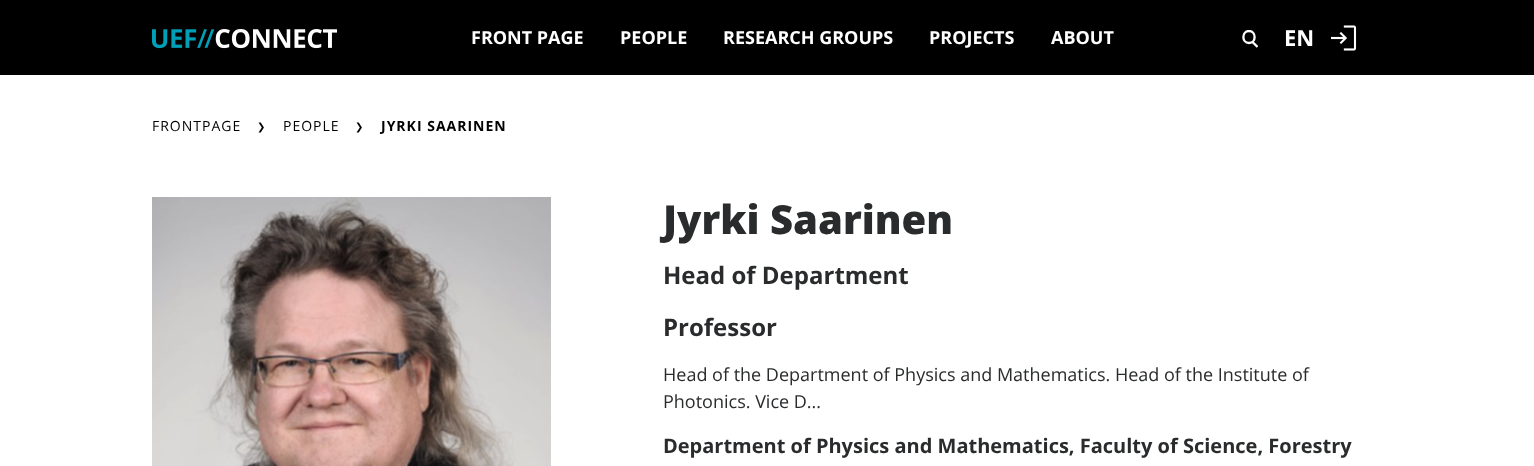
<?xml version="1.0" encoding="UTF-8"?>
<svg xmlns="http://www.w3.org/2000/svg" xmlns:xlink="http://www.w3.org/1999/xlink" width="1534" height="466">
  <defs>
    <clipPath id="clip1"><rect x="1242" y="30" width="16" height="18" /></clipPath>
  </defs>
  <rect width="100%" height="100%" fill="#ffffff" />
  <rect width="1534" height="75" fill="#000000" />
  <image x="152" y="29" width="185" height="20" xlink:href="image1.png" />
  <g clip-path="url(#clip1)">
    <path d="M 1249 43 c 7.5 0 7.5 -12 0 -12 c -7.5 0 -7.5 12 0 12 z m 3 -1.5 l 5.5 5.5" fill="none" stroke="#ffffff" stroke-width="2.3" />
  </g>
  <image x="1331" y="25" width="26" height="26" xlink:href="image2.png" />
  <image x="152" y="197" width="399" height="269" xlink:href="image3.png" />
  <text x="471" y="44" style="font-family: Open Sans; font-size: 18px; font-weight: bold; fill: #ffffff">FRONT PAGE</text>
  <text x="620" y="44" style="font-family: Open Sans; font-size: 18px; font-weight: bold; fill: #ffffff">PEOPLE</text>
  <text x="723" y="44" style="font-family: Open Sans; font-size: 18px; font-weight: bold; fill: #ffffff">RESEARCH GROUPS</text>
  <text x="929" y="44" style="font-family: Open Sans; font-size: 18px; font-weight: bold; fill: #ffffff">PROJECTS</text>
  <text x="1051" y="44" style="font-family: Open Sans; font-size: 18px; font-weight: bold; fill: #ffffff">ABOUT</text>
  <text x="1284" y="46" style="font-family: Open Sans; font-size: 22px; font-weight: bold; fill: #ffffff">EN</text>
  <text x="152" y="131" style="font-family: Open Sans; font-size: 14px; letter-spacing: 1px; fill: #000000">FRONTPAGE</text>
  <text x="257" y="130" style="font-family: DejaVu Sans; font-size: 10px; letter-spacing: 1px; fill: #000000">❯</text>
  <text x="283" y="131" style="font-family: Open Sans; font-size: 14px; letter-spacing: 1px; fill: #000000">PEOPLE</text>
  <text x="355" y="130" style="font-family: DejaVu Sans; font-size: 10px; letter-spacing: 1px; fill: #000000">❯</text>
  <text x="381" y="131" style="font-family: Open Sans; font-size: 14px; font-weight: bold; letter-spacing: 1px; fill: #000000">JYRKI SAARINEN</text>
  <text x="663" y="234" style="font-family: Open Sans; font-size: 40px; font-weight: 800; fill: #292b2c">Jyrki Saarinen</text>
  <text x="663" y="284" style="font-family: Open Sans; font-size: 24px; font-weight: bold; fill: #292b2c">Head of Department</text>
  <text x="663" y="336" style="font-family: Open Sans; font-size: 24px; font-weight: bold; fill: #292b2c">Professor</text>
  <text x="663" y="381" style="font-family: Open Sans; font-size: 18px; fill: #292b2c">Head of the Department of Physics and Mathematics. Head of the Institute of</text>
  <text x="663" y="408" style="font-family: Open Sans; font-size: 18px; fill: #292b2c">Photonics. Vice D...</text>
  <text x="663" y="453" style="font-family: Open Sans; font-size: 20px; font-weight: bold; fill: #292b2c">Department of Physics and Mathematics, Faculty of Science, Forestry</text>
</svg>
